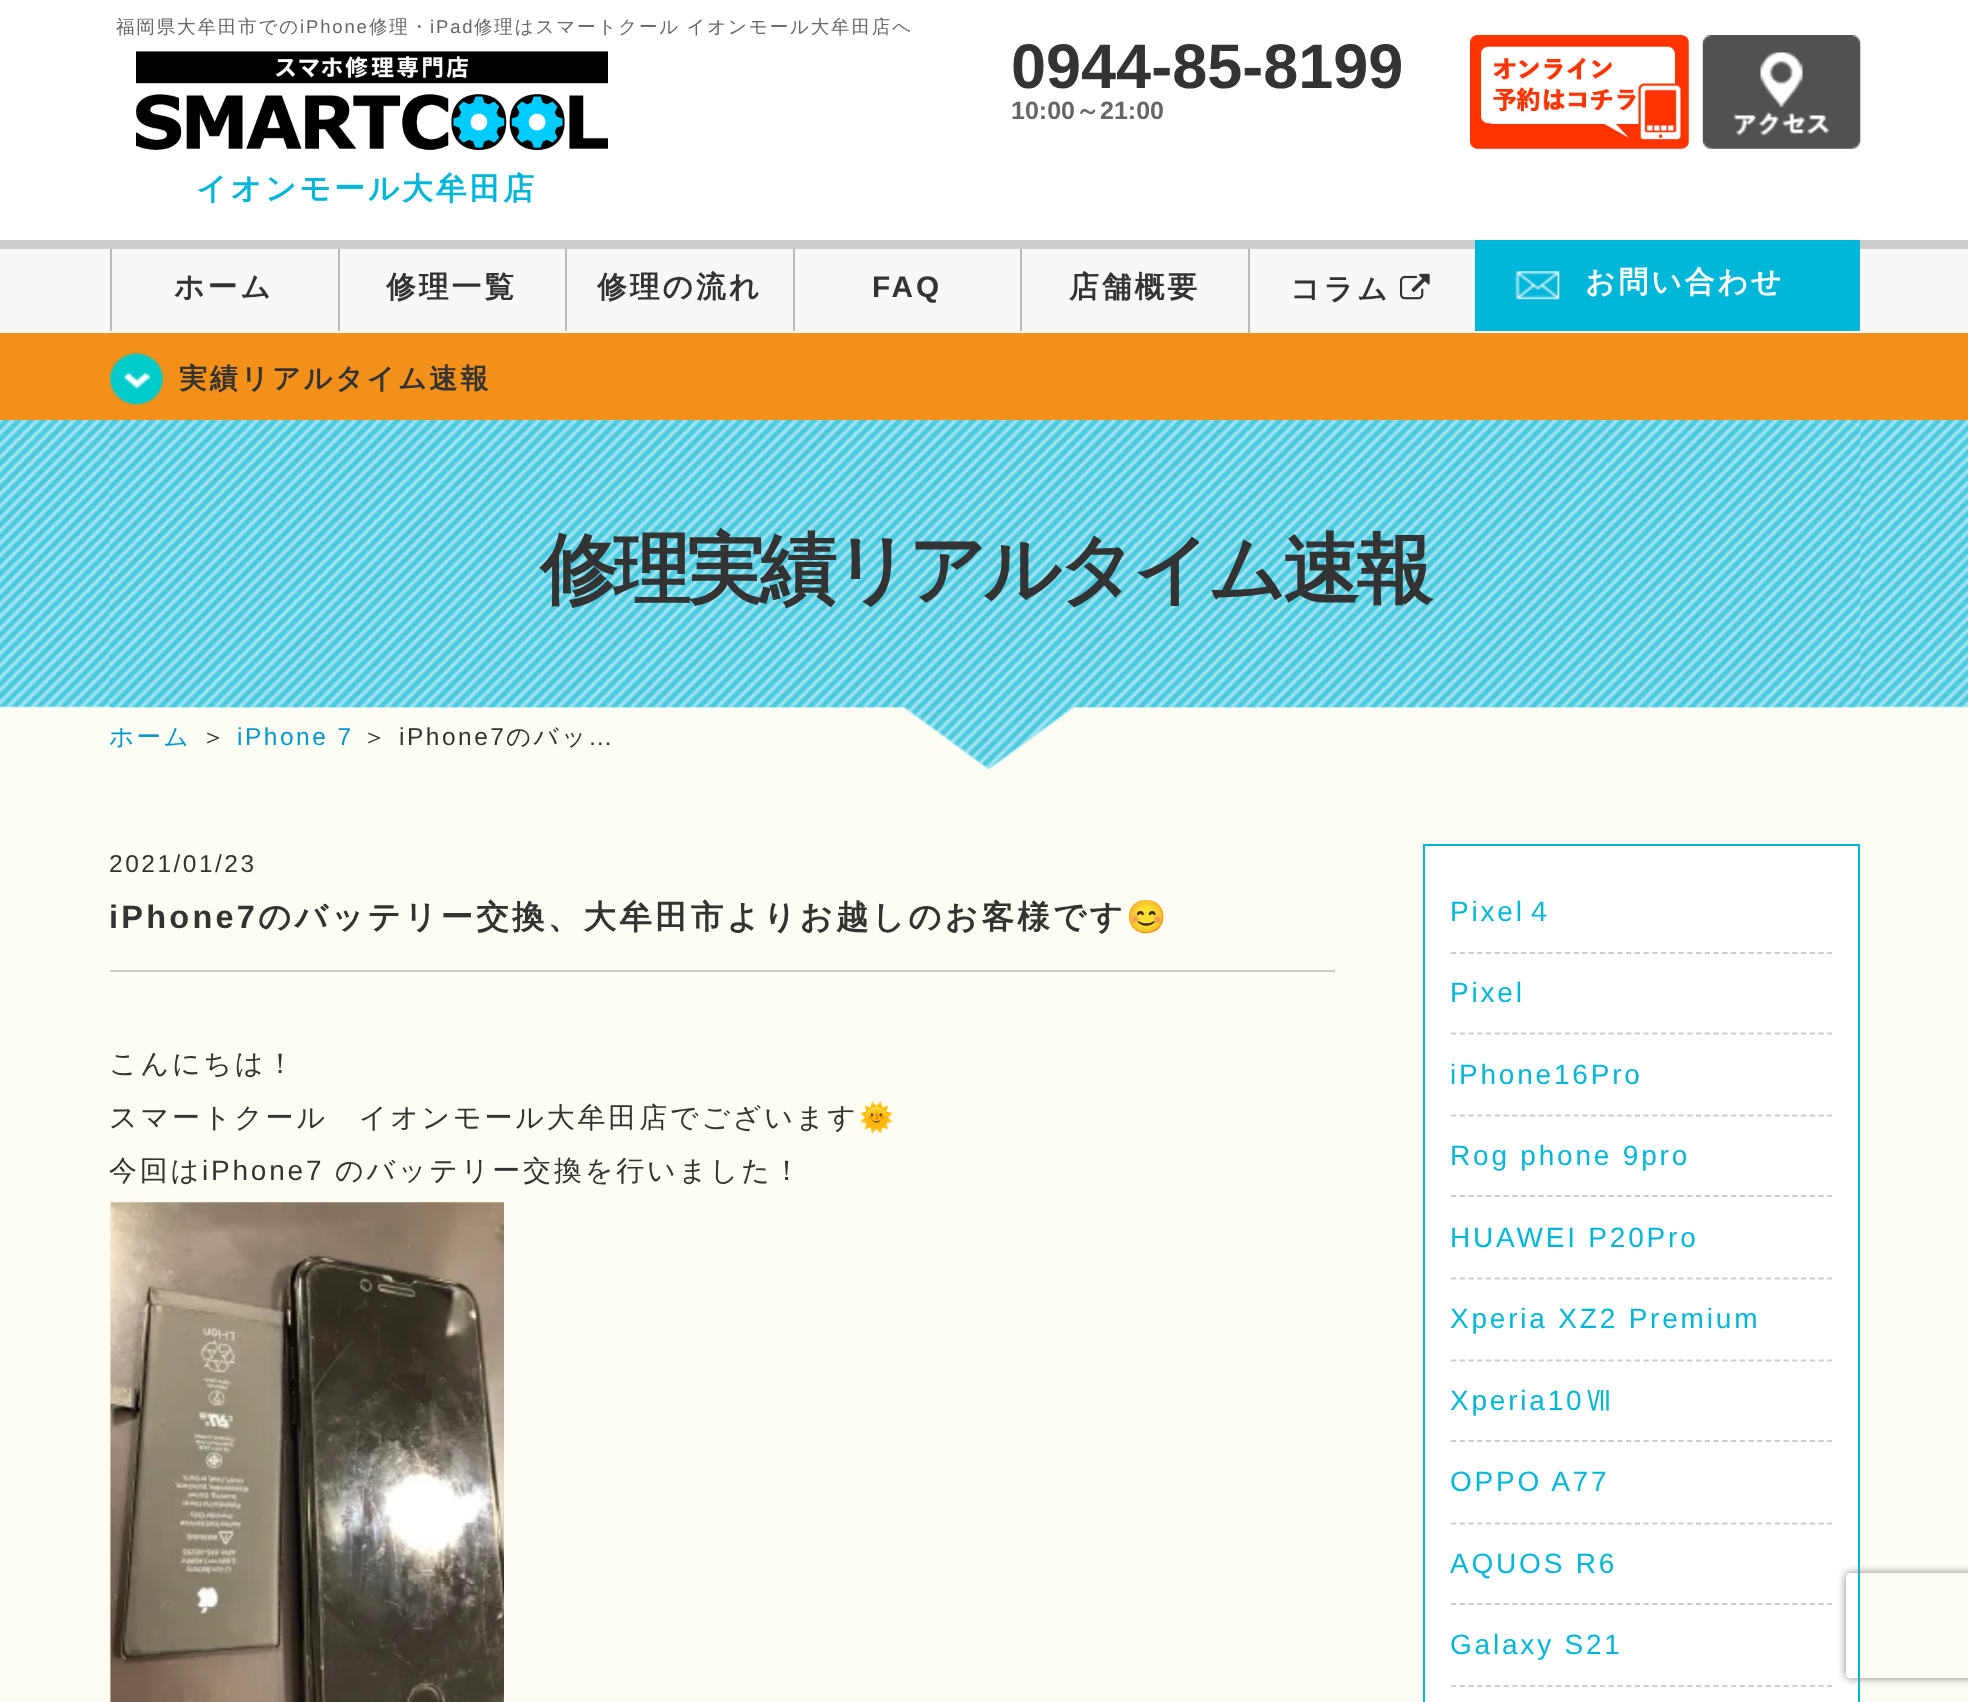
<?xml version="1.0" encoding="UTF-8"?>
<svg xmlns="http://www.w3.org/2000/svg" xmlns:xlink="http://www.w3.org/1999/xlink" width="1968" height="1702">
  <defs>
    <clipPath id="clip1"><path d="M 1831 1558 h 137 v 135 h -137 z m 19 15 h 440 c 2 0 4 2 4 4 v 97 c 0 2 -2 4 -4 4 h -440 c -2 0 -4 -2 -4 -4 v -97 c 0 -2 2 -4 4 -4 z" clip-rule="evenodd" /></clipPath>
  </defs>
  <rect width="100%" height="100%" fill="#ffffff" />
  <image x="136" y="51" width="472" height="100" xlink:href="image1.png" />
  <image x="1470" y="35" width="219" height="114" xlink:href="image2.png" />
  <image x="1702" y="35" width="159" height="114" xlink:href="image3.png" />
  <rect y="249" width="1968" height="84" fill="#f8f8f8" />
  <rect y="240" width="1968" height="9" fill="#cccccc" />
  <rect x="110" y="249" width="2" height="82" fill="#b9b9b9" />
  <rect x="338" y="249" width="2" height="82" fill="#b9b9b9" />
  <rect x="565" y="249" width="2" height="82" fill="#b9b9b9" />
  <rect x="793" y="249" width="2" height="82" fill="#b9b9b9" />
  <rect x="1020" y="249" width="2" height="82" fill="#b9b9b9" />
  <rect x="1248" y="249" width="2" height="84" fill="#b9b9b9" />
  <image x="1400" y="273" width="30" height="27" xlink:href="image4.png" />
  <rect x="1475" y="240" width="385" height="91" fill="#00b7da" />
  <image x="1515" y="271" width="45" height="29" xlink:href="image5.png" />
  <rect y="333" width="1968" height="87" fill="#f29019" />
  <image x="110" y="353" width="53" height="52" xlink:href="image6.png" />
  <rect y="705" width="1968" height="997" fill="#fdfdf3" />
  <image x="0" y="420" width="1968" height="350" xlink:href="image7.png" />
  <rect x="110" y="970" width="1225" height="2" fill="#cccccc" />
  <image x="110" y="1202" width="394" height="500" xlink:href="image8.png" />
  <rect x="1424" y="845" width="435" height="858" fill="#ffffff" stroke="#00b7da" stroke-width="2" />
  <path d="M 1451 953 h 381" fill="none" stroke="#cccccc" stroke-width="1.8" stroke-dasharray="5.25 3.5" />
  <path d="M 1451 1033.5 h 381" fill="none" stroke="#cccccc" stroke-width="1.8" stroke-dasharray="5.25 3.5" />
  <path d="M 1451 1115.5 h 381" fill="none" stroke="#cccccc" stroke-width="1.8" stroke-dasharray="5.25 3.5" />
  <path d="M 1451 1196 h 381" fill="none" stroke="#cccccc" stroke-width="1.8" stroke-dasharray="5.25 3.5" />
  <path d="M 1451 1278.5 h 381" fill="none" stroke="#cccccc" stroke-width="1.8" stroke-dasharray="5.25 3.5" />
  <path d="M 1451 1360.5 h 381" fill="none" stroke="#cccccc" stroke-width="1.8" stroke-dasharray="5.25 3.5" />
  <path d="M 1451 1441 h 381" fill="none" stroke="#cccccc" stroke-width="1.8" stroke-dasharray="5.25 3.5" />
  <path d="M 1451 1523.5 h 381" fill="none" stroke="#cccccc" stroke-width="1.8" stroke-dasharray="5.25 3.5" />
  <path d="M 1451 1604 h 381" fill="none" stroke="#cccccc" stroke-width="1.8" stroke-dasharray="5.25 3.5" />
  <path d="M 1451 1686 h 381" fill="none" stroke="#cccccc" stroke-width="1.8" stroke-dasharray="5.25 3.5" />
  <g clip-path="url(#clip1)">
    <rect x="1846" y="1573" width="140" height="105" rx="4" fill="#808080" filter="blur(4.5px)" />
  </g>
  <text x="116" y="33" style="font-family: WenQuanYi Zen Hei; font-size: 18.5px; font-weight: 500; letter-spacing: 1.85px; fill: #666666">福岡県大牟田市での</text>
  <text x="300" y="33" style="font-family: Liberation Sans; font-size: 18.5px; letter-spacing: 1.85px; fill: #666666">iPhone</text>
  <text x="369" y="33" style="font-family: WenQuanYi Zen Hei; font-size: 18.5px; font-weight: 500; letter-spacing: 1.85px; fill: #666666">修理・</text>
  <text x="430" y="33" style="font-family: Liberation Sans; font-size: 18.5px; letter-spacing: 1.85px; fill: #666666">iPad</text>
  <text x="474" y="33" word-spacing="-1" style="font-family: WenQuanYi Zen Hei; font-size: 18.5px; font-weight: 500; letter-spacing: 1.85px; fill: #666666">修理はスマートクール イオンモール大牟田店へ</text>
  <text x="196" y="199" style="font-family: WenQuanYi Zen Hei; font-size: 30.75px; font-weight: bold; letter-spacing: 3px; fill: #00b7da">イオンモール大牟田店</text>
  <text x="1011" y="88" style="font-family: Liberation Sans; font-size: 63px; font-weight: bold; fill: #333333">0944-85-8199</text>
  <text x="1011" y="119" style="font-family: Liberation Sans; font-size: 25px; font-weight: bold; fill: #666666">10:00</text>
  <text x="1075" y="119" style="font-family: WenQuanYi Zen Hei; font-size: 25px; font-weight: bold; fill: #666666">～</text>
  <text x="1100" y="119" style="font-family: Liberation Sans; font-size: 25px; font-weight: bold; fill: #666666">21:00</text>
  <text x="174" y="297" style="font-family: WenQuanYi Zen Hei; font-size: 29.75px; font-weight: bold; letter-spacing: 3px; fill: #333333">ホーム</text>
  <text x="386" y="297" style="font-family: WenQuanYi Zen Hei; font-size: 29.75px; font-weight: bold; letter-spacing: 3px; fill: #333333">修理一覧</text>
  <text x="597" y="297" style="font-family: WenQuanYi Zen Hei; font-size: 29.75px; font-weight: bold; letter-spacing: 3px; fill: #333333">修理の流れ</text>
  <text x="872" y="297" style="font-family: Liberation Sans; font-size: 29.75px; font-weight: bold; letter-spacing: 3px; fill: #333333">FAQ</text>
  <text x="1069" y="297" style="font-family: WenQuanYi Zen Hei; font-size: 29.75px; font-weight: bold; letter-spacing: 3px; fill: #333333">店舗概要</text>
  <text x="1290" y="299" style="font-family: WenQuanYi Zen Hei; font-size: 29.75px; font-weight: bold; letter-spacing: 3px; fill: #333333">コラム</text>
  <text x="1585" y="292" style="font-family: WenQuanYi Zen Hei; font-size: 29.75px; font-weight: bold; letter-spacing: 3px; fill: #ffffff">お問い合わせ</text>
  <text x="179" y="388" style="font-family: WenQuanYi Zen Hei; font-size: 28px; font-weight: bold; letter-spacing: 2.8px; fill: #333333">実績リアルタイム速報</text>
  <text x="540" y="596" style="font-family: WenQuanYi Zen Hei; font-size: 77px; font-weight: bold; letter-spacing: -3.8px; fill: #333333">修理実績リアルタイム速報</text>
  <text x="109" y="745" style="font-family: WenQuanYi Zen Hei; font-size: 24.5px; font-weight: 500; letter-spacing: 2.5px; fill: #0099cc">ホーム</text>
  <text x="201" y="745" style="font-family: WenQuanYi Zen Hei; font-size: 24.5px; font-weight: 500; letter-spacing: 2.5px; fill: #333333">＞</text>
  <text x="237" y="745" style="font-family: Liberation Sans; font-size: 24.5px; letter-spacing: 2.5px; fill: #0099cc">iPhone 7</text>
  <text x="362" y="745" style="font-family: WenQuanYi Zen Hei; font-size: 24.5px; font-weight: 500; letter-spacing: 2.5px; fill: #333333">＞</text>
  <text x="399" y="745" style="font-family: Liberation Sans; font-size: 24.5px; letter-spacing: 2.5px; fill: #333333">iPhone7</text>
  <text x="506" y="745" style="font-family: WenQuanYi Zen Hei; font-size: 24.5px; font-weight: 500; letter-spacing: 2.5px; fill: #333333">のバッ</text>
  <text x="588" y="745" style="font-family: Liberation Sans; font-size: 24.5px; letter-spacing: 2.5px; fill: #333333">…</text>
  <text x="109" y="872" style="font-family: Liberation Sans; font-size: 24.5px; letter-spacing: 2.5px; fill: #333333">2021/01/23</text>
  <text x="109" y="928" style="font-family: Liberation Sans; font-size: 32.5px; font-weight: bold; letter-spacing: 3.25px; fill: #333333">iPhone7</text>
  <text x="258" y="928" style="font-family: WenQuanYi Zen Hei; font-size: 32.5px; font-weight: bold; letter-spacing: 3.25px; fill: #333333">のバッテリー交換、大牟田市よりお越しのお客様です</text>
  <text x="1126" y="928" style="font-family: Noto Color Emoji; font-size: 32.5px; font-weight: bold; letter-spacing: 3.25px; fill: #333333">😊</text>
  <text x="109" y="1073" style="font-family: WenQuanYi Zen Hei; font-size: 28px; font-weight: 500; letter-spacing: 2.8px; fill: #333333">こんにちは！</text>
  <text x="109" y="1127" style="font-family: WenQuanYi Zen Hei; font-size: 28px; font-weight: 500; letter-spacing: 2.8px; fill: #333333">スマートクール　イオンモール大牟田店でございます</text>
  <text x="859" y="1127" style="font-family: Noto Color Emoji; font-size: 28px; letter-spacing: 2.8px; fill: #333333">🌞</text>
  <text x="109" y="1180" style="font-family: WenQuanYi Zen Hei; font-size: 28px; font-weight: 500; letter-spacing: 2.8px; fill: #333333">今回は</text>
  <text x="202" y="1180" style="font-family: Liberation Sans; font-size: 28px; letter-spacing: 2.8px; fill: #333333">iPhone7</text>
  <text x="335" y="1180" style="font-family: WenQuanYi Zen Hei; font-size: 28px; font-weight: 500; letter-spacing: 2.8px; fill: #333333">のバッテリー交換を行いました！</text>
  <text x="1450" y="921" style="font-family: Liberation Sans; font-size: 28px; letter-spacing: 2.8px; fill: #00b7da">Pixel</text>
  <text x="1525" y="921" style="font-family: WenQuanYi Zen Hei; font-size: 28px; font-weight: 500; letter-spacing: 2.8px; fill: #00b7da">４</text>
  <text x="1450" y="1002" style="font-family: Liberation Sans; font-size: 28px; letter-spacing: 2.8px; fill: #00b7da">Pixel</text>
  <text x="1450" y="1084" style="font-family: Liberation Sans; font-size: 28px; letter-spacing: 2.8px; fill: #00b7da">iPhone16Pro</text>
  <text x="1450" y="1165" style="font-family: Liberation Sans; font-size: 28px; letter-spacing: 2.8px; fill: #00b7da">Rog phone 9pro</text>
  <text x="1450" y="1247" style="font-family: Liberation Sans; font-size: 28px; letter-spacing: 2.8px; fill: #00b7da">HUAWEI P20Pro</text>
  <text x="1450" y="1328" style="font-family: Liberation Sans; font-size: 28px; letter-spacing: 2.8px; fill: #00b7da">Xperia XZ2 Premium</text>
  <text x="1450" y="1410" style="font-family: Liberation Sans; font-size: 28px; letter-spacing: 2.8px; fill: #00b7da">Xperia10</text>
  <text x="1584" y="1410" style="font-family: WenQuanYi Zen Hei; font-size: 28px; font-weight: 500; letter-spacing: 2.8px; fill: #00b7da">Ⅶ</text>
  <text x="1450" y="1491" style="font-family: Liberation Sans; font-size: 28px; letter-spacing: 2.8px; fill: #00b7da">OPPO A77</text>
  <text x="1450" y="1573" style="font-family: Liberation Sans; font-size: 28px; letter-spacing: 2.8px; fill: #00b7da">AQUOS R6</text>
  <text x="1450" y="1654" style="font-family: Liberation Sans; font-size: 28px; letter-spacing: 2.8px; fill: #00b7da">Galaxy S21</text>
</svg>
